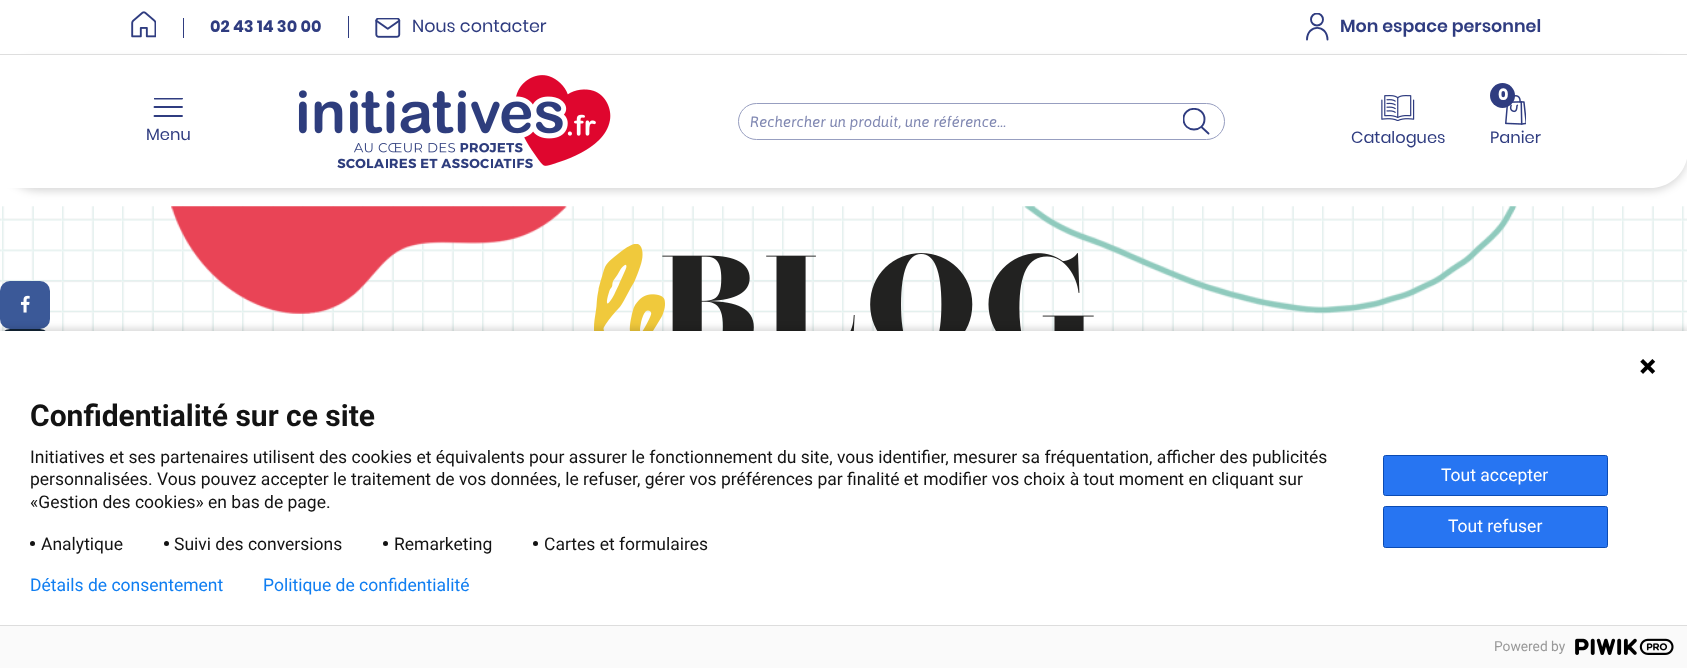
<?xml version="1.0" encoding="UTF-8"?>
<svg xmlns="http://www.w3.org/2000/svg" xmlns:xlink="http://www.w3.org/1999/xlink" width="1687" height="668">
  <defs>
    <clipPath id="clip1"><rect x="1306" y="13" width="23" height="28" /></clipPath>
    <clipPath id="clip2"><rect x="1183" y="108" width="27" height="27" /></clipPath>
    <clipPath id="clip3"><rect x="154" y="98" width="30" height="20" /></clipPath>
  </defs>
  <rect width="100%" height="100%" fill="#ffffff" />
  <image x="131" y="11" width="25" height="27" xlink:href="image1.png" />
  <rect x="183" y="18" width="1" height="20" fill="#2f3c80" />
  <rect x="348" y="16" width="1" height="22" fill="#2f3c80" />
  <image x="375" y="18" width="26" height="20" xlink:href="image2.png" />
  <g clip-path="url(#clip1)">
    <circle cx="1317" cy="19.5" r="6" fill="none" stroke="#2f3c80" stroke-width="1.9" />
  </g>
  <path d="M 1307 39.5 c 0.5 -15.5 20 -15.5 20.5 0" fill="none" stroke="#2f3c80" stroke-width="1.9" stroke-linecap="round" stroke-linejoin="round" />
  <rect y="59" width="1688" height="132" rx="38" fill="#000000" fill-opacity="0.16" filter="blur(4px)" />
  <rect y="54" width="1687" height="1" fill="#dedede" />
  <path d="M 0 55 h 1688 v 95 c 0 21 -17 38 -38 38 h -1650 z" fill="#ffffff" />
  <image x="298" y="75" width="313" height="94" xlink:href="image3.png" />
  <rect x="738.5" y="103.5" width="486" height="36" rx="18" fill="none" stroke="#979ec0" />
  <g clip-path="url(#clip2)">
    <path d="M 1204.5 119 c 0 14 -21 14 -21 0 c 0 -13.5 21 -13.5 21 0 z" fill="none" stroke="#2f3c80" stroke-width="1.9" stroke-linecap="round" stroke-linejoin="round" />
  </g>
  <path d="M 1208.5 133.5 l -6.5 -6" fill="none" stroke="#2f3c80" stroke-width="1.9" stroke-linecap="round" stroke-linejoin="round" />
  <image x="1381" y="95" width="34" height="26" xlink:href="image4.png" />
  <image x="1505" y="95" width="21" height="30" xlink:href="image5.png" />
  <circle cx="1502.5" cy="95.5" r="12.5" fill="#2f3c80" />
  <path d="M 154.5 107 h 27.5" fill="none" stroke="#2f3c80" stroke-width="1.9" stroke-linecap="round" stroke-linejoin="round" />
  <g clip-path="url(#clip3)">
    <path d="M 154.5 98.5 h 27.5" fill="none" stroke="#2f3c80" stroke-width="1.9" stroke-linecap="round" stroke-linejoin="round" />
  </g>
  <path d="M 154.5 116 h 27.5" fill="none" stroke="#2f3c80" stroke-width="1.9" stroke-linecap="round" stroke-linejoin="round" />
  <image x="0" y="206" width="1687" height="125" xlink:href="image6.png" />
  <image x="594" y="244" width="500" height="87" xlink:href="image7.png" />
  <rect y="281" width="50" height="48" rx="10" fill="#3b5998" />
  <image x="20" y="295" width="10" height="18" xlink:href="image8.png" />
  <rect y="329" width="50" height="49" rx="10" fill="#122435" />
  <rect x="-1" y="328" width="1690" height="340" fill="#000000" fill-opacity="0.14" filter="blur(3px)" />
  <rect y="331" width="1687" height="294" fill="#ffffff" />
  <image x="1640" y="359" width="16" height="15" xlink:href="image9.png" />
  <circle cx="32.5" cy="543.5" r="2.5" fill="#131313" />
  <circle cx="166.5" cy="543.5" r="2.5" fill="#131313" />
  <circle cx="385.5" cy="543.5" r="2.5" fill="#131313" />
  <circle cx="535.5" cy="543.5" r="2.5" fill="#131313" />
  <rect x="1383.5" y="455.5" width="224" height="40" rx="2" fill="#2775f2" stroke="#0b4bb3" />
  <rect x="1383.5" y="506.5" width="224" height="41" rx="2" fill="#2775f2" stroke="#0b4bb3" />
  <rect y="626" width="1687" height="42" fill="#fafafa" />
  <rect y="625" width="1687" height="1" fill="#dddddd" />
  <image x="1575" y="638" width="99" height="17" xlink:href="image10.png" />
  <text x="210" y="32" style="font-family: Poppins; font-size: 16.25px; font-weight: bold; fill: #2f3c80">02 43 14 30 00</text>
  <text x="412" y="32" style="font-family: Poppins; font-size: 17.5px; fill: #2f3c80">Nous contacter</text>
  <text x="1340" y="32" style="font-family: Poppins; font-size: 17.5px; font-weight: 600; fill: #2f3c80">Mon espace personnel</text>
  <text x="750" y="127" style="font-family: Asap; font-size: 15px; font-style: italic; fill: #8088b2">Rechercher un produit, une référence...</text>
  <text x="1351" y="143" style="font-family: Poppins; font-size: 16.25px; fill: #2f3c80">Catalogues</text>
  <text x="1498" y="100" style="font-family: Poppins; font-size: 16.25px; font-weight: bold; fill: #ffffff">0</text>
  <text x="1490" y="143" style="font-family: Poppins; font-size: 16.25px; fill: #2f3c80">Panier</text>
  <text x="146" y="140" style="font-family: Poppins; font-size: 16.25px; fill: #2f3c80">Menu</text>
  <text x="30" y="426" style="font-family: Roboto; font-size: 30px; font-weight: bold; fill: #131313">Confidentialité sur ce site</text>
  <text x="30" y="463" style="font-family: Roboto; font-size: 17.5px; fill: #131313">Initiatives et ses partenaires utilisent des cookies et équivalents pour assurer le fonctionnement du site, vous identifier, mesurer sa fréquentation, afficher des publicités</text>
  <text x="30" y="485" style="font-family: Roboto; font-size: 17.5px; fill: #131313">personnalisées. Vous pouvez accepter le traitement de vos données, le refuser, gérer vos préférences par finalité et modifier vos choix à tout moment en cliquant sur</text>
  <text x="30" y="508" style="font-family: Roboto; font-size: 17.5px; fill: #131313">«Gestion des cookies» en bas de page.</text>
  <text x="41" y="550" style="font-family: Roboto; font-size: 17.5px; fill: #131313">Analytique</text>
  <text x="174" y="550" style="font-family: Roboto; font-size: 17.5px; fill: #131313">Suivi des conversions</text>
  <text x="394" y="550" style="font-family: Roboto; font-size: 17.5px; fill: #131313">Remarketing</text>
  <text x="544" y="550" style="font-family: Roboto; font-size: 17.5px; fill: #131313">Cartes et formulaires</text>
  <text x="1441" y="481" style="font-family: Roboto; font-size: 17.5px; fill: #ffffff">Tout accepter</text>
  <text x="1448" y="532" style="font-family: Roboto; font-size: 17.5px; fill: #ffffff">Tout refuser</text>
  <text x="30" y="591" style="font-family: Roboto; font-size: 17.5px; fill: #107ef1">Détails de consentement</text>
  <text x="263" y="591" style="font-family: Roboto; font-size: 17.5px; fill: #107ef1">Politique de confidentialité</text>
  <text x="1494" y="651" style="font-family: Roboto; font-size: 13.75px; fill: #999999">Powered by</text>
</svg>
